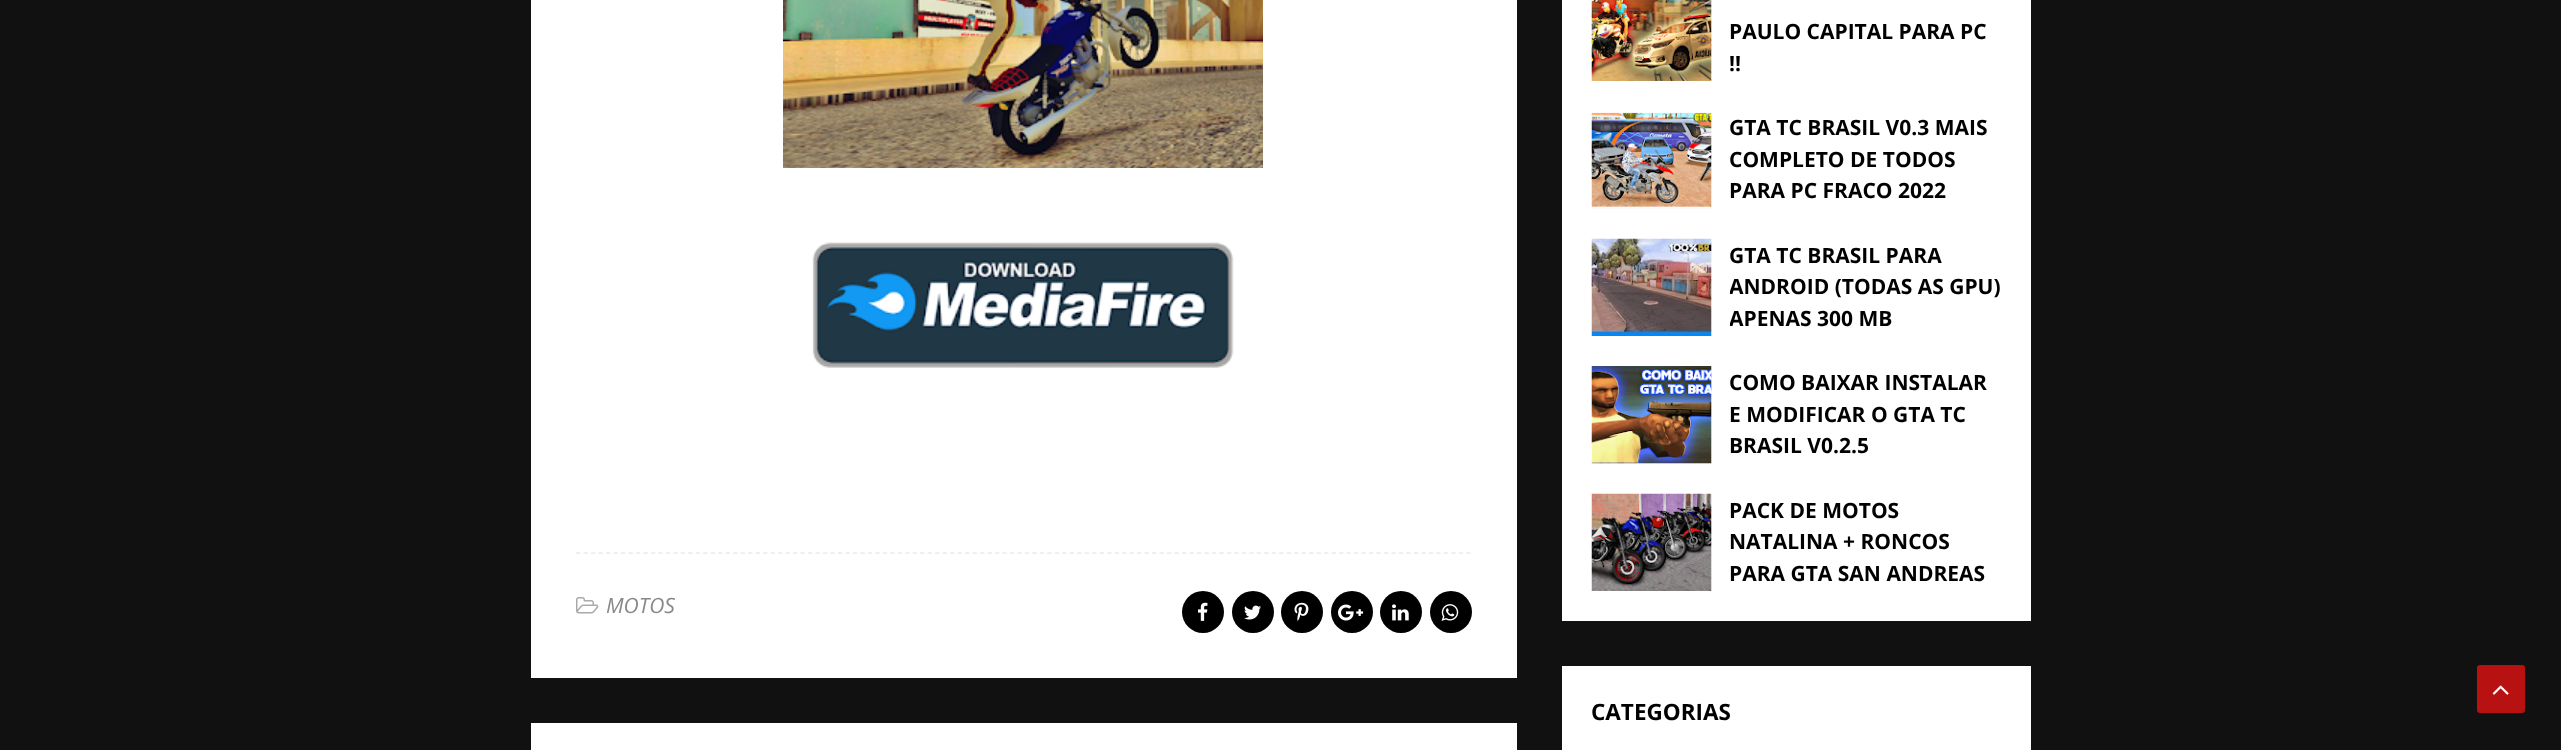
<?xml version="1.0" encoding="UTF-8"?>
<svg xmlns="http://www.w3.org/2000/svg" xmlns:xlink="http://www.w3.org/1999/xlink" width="2561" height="750">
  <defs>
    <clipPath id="clip1"><rect x="1730" y="239" width="271" height="94" /></clipPath>
  </defs>
  <rect width="100%" height="100%" fill="#111111" />
  <rect x="531" width="986" height="678" fill="#ffffff" />
  <image x="783" y="0" width="480" height="168" xlink:href="image1.png" />
  <image x="812" y="242" width="422" height="126" xlink:href="image2.png" />
  <path d="M 576 553 h 895.5" fill="none" stroke="#ebebeb" stroke-width="1.5" stroke-dasharray="4.5 2.98" />
  <image x="576" y="597" width="23" height="17" xlink:href="image3.png" />
  <circle cx="1203" cy="612" r="21" fill="#000000" />
  <image x="1198" y="602" width="10" height="19" xlink:href="image4.png" />
  <circle cx="1253" cy="612" r="21" fill="#000000" />
  <image x="1244" y="605" width="17" height="15" xlink:href="image5.png" />
  <circle cx="1302" cy="612" r="21" fill="#000000" />
  <image x="1294" y="602" width="15" height="19" xlink:href="image6.png" />
  <circle cx="1352" cy="612" r="21" fill="#000000" />
  <image x="1338" y="604" width="26" height="17" xlink:href="image7.png" />
  <circle cx="1401" cy="612" r="21" fill="#000000" />
  <image x="1392" y="604" width="17" height="17" xlink:href="image8.png" />
  <circle cx="1451" cy="612" r="21" fill="#000000" />
  <image x="1441" y="604" width="18" height="17" xlink:href="image9.png" />
  <rect x="531" y="723" width="986" height="27" fill="#ffffff" />
  <rect x="1562" width="469" height="621" fill="#ffffff" />
  <rect x="1711" width="1" height="81" fill="#f9f9f9" />
  <image x="1591" y="0" width="121" height="81" xlink:href="image10.png" />
  <rect x="1592" y="111" width="120" height="98" fill="#f9f9f9" />
  <image x="1591" y="111" width="121" height="97" xlink:href="image11.png" />
  <rect x="1711" y="239" width="1" height="97" fill="#f9f9f9" />
  <image x="1591" y="238" width="121" height="98" xlink:href="image12.png" />
  <rect x="1592" y="366" width="120" height="98" fill="#f9f9f9" />
  <image x="1591" y="366" width="121" height="98" xlink:href="image13.png" />
  <rect x="1711" y="494" width="1" height="97" fill="#f9f9f9" />
  <image x="1591" y="493" width="121" height="98" xlink:href="image14.png" />
  <rect x="1562" y="666" width="469" height="84" fill="#ffffff" />
  <rect x="2477" y="665" width="48" height="48" rx="3" fill="#b81111" />
  <image x="2492" y="685" width="17" height="10" xlink:href="image15.png" />
  <text x="606" y="613" style="font-family: Open Sans; font-size: 21px; font-style: italic; fill: #888888">MOTOS</text>
  <text x="1729" y="39" style="font-family: Open Sans; font-size: 21px; font-weight: bold; fill: #000000">PAULO CAPITAL PARA PC</text>
  <text x="1729" y="71" style="font-family: Open Sans; font-size: 21px; font-weight: bold; fill: #000000">!!</text>
  <text x="1729" y="135" style="font-family: Open Sans; font-size: 21px; font-weight: bold; fill: #000000">GTA TC BRASIL V0.3 MAIS</text>
  <text x="1729" y="167" style="font-family: Open Sans; font-size: 21px; font-weight: bold; fill: #000000">COMPLETO DE TODOS</text>
  <text x="1729" y="198" style="font-family: Open Sans; font-size: 21px; font-weight: bold; fill: #000000">PARA PC FRACO 2022</text>
  <text x="1729" y="263" style="font-family: Open Sans; font-size: 21px; font-weight: bold; fill: #000000">GTA TC BRASIL PARA</text>
  <g clip-path="url(#clip1)">
    <text x="1729" y="294" style="font-family: Open Sans; font-size: 21px; font-weight: bold; fill: #000000">ANDROID (TODAS AS GPU)</text>
    <text x="1729" y="326" style="font-family: Open Sans; font-size: 21px; font-weight: bold; fill: #000000">APENAS 300 MB</text>
  </g>
  <text x="1729" y="390" style="font-family: Open Sans; font-size: 21px; font-weight: bold; fill: #000000">COMO BAIXAR INSTALAR</text>
  <text x="1729" y="422" style="font-family: Open Sans; font-size: 21px; font-weight: bold; fill: #000000">E MODIFICAR O GTA TC</text>
  <text x="1729" y="453" style="font-family: Open Sans; font-size: 21px; font-weight: bold; fill: #000000">BRASIL V0.2.5</text>
  <text x="1729" y="518" style="font-family: Open Sans; font-size: 21px; font-weight: bold; fill: #000000">PACK DE MOTOS</text>
  <text x="1729" y="549" style="font-family: Open Sans; font-size: 21px; font-weight: bold; fill: #000000">NATALINA + RONCOS</text>
  <text x="1729" y="581" style="font-family: Open Sans; font-size: 21px; font-weight: bold; fill: #000000">PARA GTA SAN ANDREAS</text>
  <text x="1591" y="720" style="font-family: Open Sans; font-size: 22.5px; font-weight: bold; fill: #000000">CATEGORIAS</text>
</svg>
